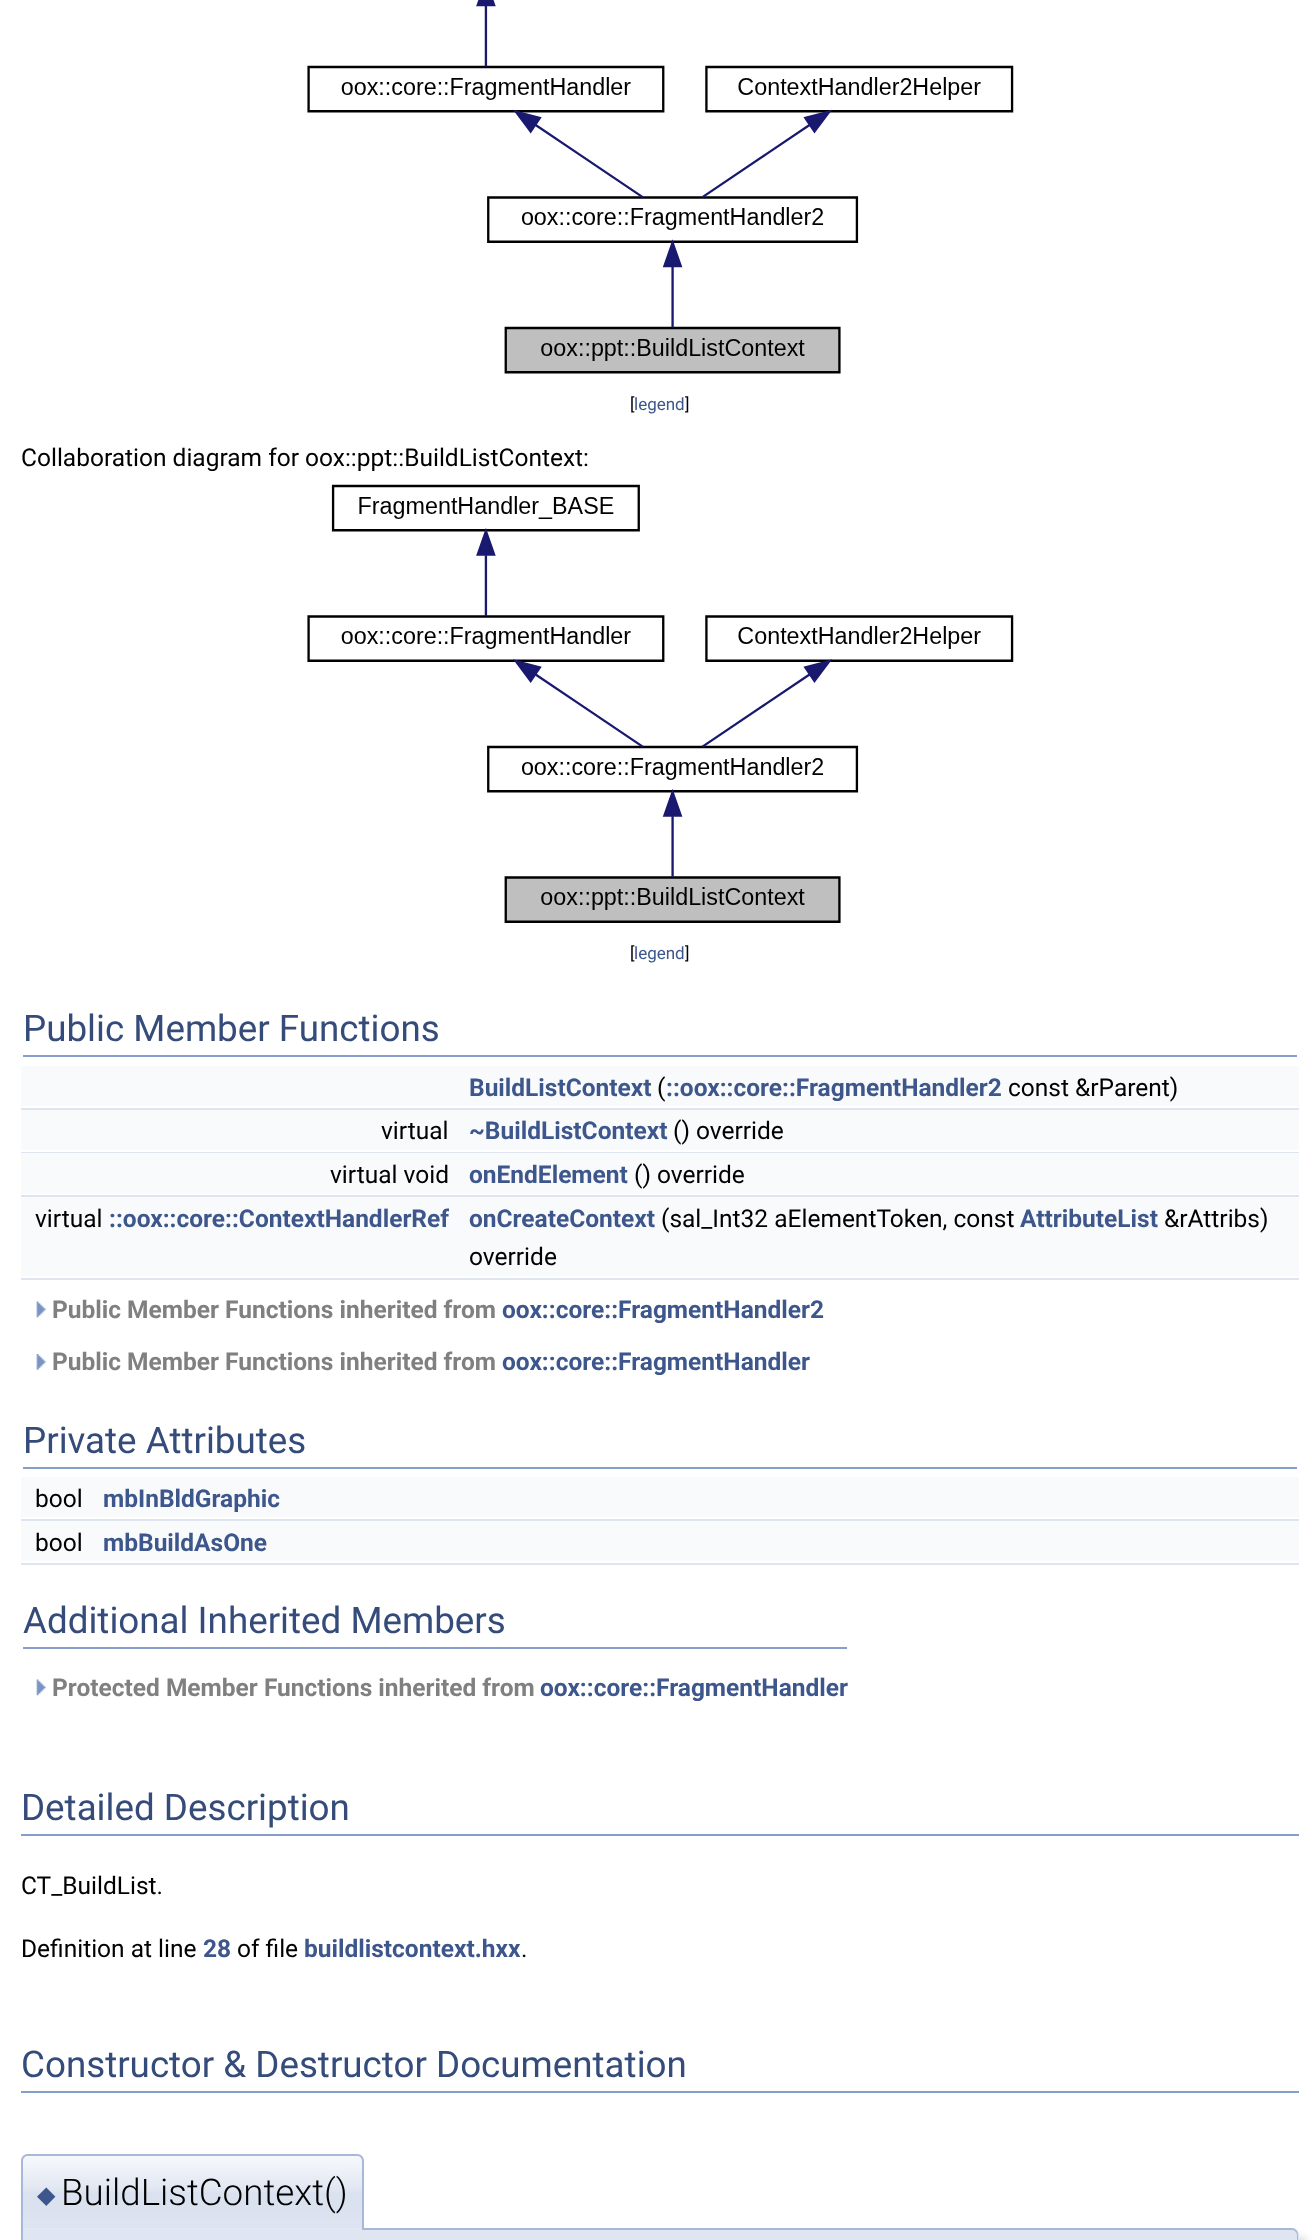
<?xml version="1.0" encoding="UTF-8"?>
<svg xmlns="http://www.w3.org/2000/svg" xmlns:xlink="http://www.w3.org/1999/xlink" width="1312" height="2240">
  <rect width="100%" height="100%" fill="#ffffff" />
  <image x="307" y="0" width="707" height="374" xlink:href="image1.png" />
  <image x="307" y="484" width="707" height="439" xlink:href="image2.png" />
  <rect x="23" y="1055" width="1274" height="2" fill="#879ecb" />
  <rect x="21" y="1066" width="1278" height="40" fill="#f9fafc" />
  <rect x="21" y="1108" width="1278" height="2" fill="#dee4f0" />
  <rect x="21" y="1110" width="1278" height="40" fill="#f9fafc" />
  <rect x="21" y="1152" width="1278" height="1" fill="#dee4f0" />
  <rect x="21" y="1153" width="1278" height="41" fill="#f9fafc" />
  <rect x="21" y="1195" width="1278" height="2" fill="#dee4f0" />
  <rect x="21" y="1197" width="1278" height="79" fill="#f9fafc" />
  <rect x="21" y="1278" width="1278" height="2" fill="#dee4f0" />
  <image x="36" y="1301" width="10" height="17" xlink:href="image3.png" />
  <image x="36" y="1354" width="10" height="16" xlink:href="image4.png" />
  <rect x="23" y="1467" width="1274" height="2" fill="#879ecb" />
  <rect x="21" y="1477" width="1278" height="40" fill="#f9fafc" />
  <rect x="21" y="1519" width="1278" height="2" fill="#dee4f0" />
  <rect x="21" y="1521" width="1278" height="40" fill="#f9fafc" />
  <rect x="21" y="1563" width="1278" height="2" fill="#dee4f0" />
  <rect x="23" y="1647" width="824" height="2" fill="#879ecb" />
  <image x="36" y="1679" width="10" height="17" xlink:href="image3.png" />
  <rect x="21" y="1834" width="1278" height="2" fill="#879ecb" />
  <rect x="21" y="2091" width="1278" height="2" fill="#879ecb" />
  <rect x="30" y="2237" width="1277" height="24" rx="7" fill="#000000" fill-opacity="0.15" filter="blur(4.5px)" />
  <path d="M 21 2228 h 1271 c 4 0 7 3 7 7 v 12 h -1278 z" fill="#dfe5f1" />
  <path d="M 21 2228 h 1271 c 3 0 6 3 6 7 v 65 h -1277 z m 2 2 h 1269 c 2 0 5 2 5 5 v 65 h -1274 z" fill="#a8b8d9" fill-rule="evenodd" />
  <path d="M 28 2154 h 329 c 4 0 7 3 7 7 v 69 h -343 v -69 c 0 -4 3 -7 7 -7 z" fill="#e2e8f2" />
  <image x="21" y="2155" width="343" height="73" xlink:href="image5.png" />
  <path d="M 28 2154 h 329 c 4 0 7 3 7 7 v 69 h -343 v -69 c 0 -4 3 -7 7 -7 z m 0 2 h 329 c 3 0 5 2 5 5 v 69 h -339 v -69 c 0 -3 2 -5 5 -5 z" fill="#a8b8d9" fill-rule="evenodd" />
  <text x="630" y="410" style="font-family: Roboto; font-size: 17px; fill: #000000">[</text>
  <text x="634" y="410" style="font-family: Roboto; font-size: 17px; fill: #3d578c">legend</text>
  <text x="685" y="410" style="font-family: Roboto; font-size: 17px; fill: #000000">]</text>
  <text x="21" y="466" style="font-family: Roboto; font-size: 24.5px; fill: #000000">Collaboration diagram for oox::ppt::BuildListContext:</text>
  <text x="630" y="959" style="font-family: Roboto; font-size: 17px; fill: #000000">[</text>
  <text x="634" y="959" style="font-family: Roboto; font-size: 17px; fill: #3d578c">legend</text>
  <text x="685" y="959" style="font-family: Roboto; font-size: 17px; fill: #000000">]</text>
  <text x="23" y="1041" style="font-family: Roboto; font-size: 36.75px; fill: #354c7b">Public Member Functions</text>
  <text x="469" y="1096" style="font-family: Roboto; font-size: 24.5px; font-weight: bold; fill: #3d578c">BuildListContext</text>
  <text x="657" y="1096" style="font-family: Roboto; font-size: 24.5px; fill: #000000">(</text>
  <text x="666" y="1096" style="font-family: Roboto; font-size: 24.5px; font-weight: bold; fill: #3d578c">::oox::core::FragmentHandler2</text>
  <text x="1008" y="1096" style="font-family: Roboto; font-size: 24.5px; fill: #000000">const &amp;rParent)</text>
  <text x="381" y="1139" style="font-family: Roboto; font-size: 24.5px; fill: #000000">virtual</text>
  <text x="469" y="1139" style="font-family: Roboto; font-size: 24.5px; font-weight: bold; fill: #3d578c">~BuildListContext</text>
  <text x="673" y="1139" style="font-family: Roboto; font-size: 24.5px; fill: #000000">() override</text>
  <text x="330" y="1183" style="font-family: Roboto; font-size: 24.5px; fill: #000000">virtual void</text>
  <text x="469" y="1183" style="font-family: Roboto; font-size: 24.5px; font-weight: bold; fill: #3d578c">onEndElement</text>
  <text x="634" y="1183" style="font-family: Roboto; font-size: 24.5px; fill: #000000">() override</text>
  <text x="35" y="1227" style="font-family: Roboto; font-size: 24.5px; fill: #000000">virtual</text>
  <text x="109" y="1227" style="font-family: Roboto; font-size: 24.5px; font-weight: bold; fill: #3d578c">::oox::core::ContextHandlerRef</text>
  <text x="469" y="1227" style="font-family: Roboto; font-size: 24.5px; font-weight: bold; fill: #3d578c">onCreateContext</text>
  <text x="661" y="1227" style="font-family: Roboto; font-size: 24.5px; fill: #000000">(sal_Int32 aElementToken, const</text>
  <text x="1020" y="1227" style="font-family: Roboto; font-size: 24.5px; font-weight: bold; fill: #3d578c">AttributeList</text>
  <text x="1164" y="1227" style="font-family: Roboto; font-size: 24.5px; fill: #000000">&amp;rAttribs)</text>
  <text x="469" y="1265" style="font-family: Roboto; font-size: 24.5px; fill: #000000">override</text>
  <text x="52" y="1318" style="font-family: Roboto; font-size: 24.5px; font-weight: bold; fill: #808080">Public Member Functions inherited from</text>
  <text x="502" y="1318" style="font-family: Roboto; font-size: 24.5px; font-weight: bold; fill: #3d578c">oox::core::FragmentHandler2</text>
  <text x="52" y="1370" style="font-family: Roboto; font-size: 24.5px; font-weight: bold; fill: #808080">Public Member Functions inherited from</text>
  <text x="502" y="1370" style="font-family: Roboto; font-size: 24.5px; font-weight: bold; fill: #3d578c">oox::core::FragmentHandler</text>
  <text x="23" y="1453" style="font-family: Roboto; font-size: 36.75px; fill: #354c7b">Private Attributes</text>
  <text x="35" y="1507" style="font-family: Roboto; font-size: 24.5px; fill: #000000">bool</text>
  <text x="103" y="1507" style="font-family: Roboto; font-size: 24.5px; font-weight: bold; fill: #3d578c">mbInBldGraphic</text>
  <text x="35" y="1551" style="font-family: Roboto; font-size: 24.5px; fill: #000000">bool</text>
  <text x="103" y="1551" style="font-family: Roboto; font-size: 24.5px; font-weight: bold; fill: #3d578c">mbBuildAsOne</text>
  <text x="23" y="1633" style="font-family: Roboto; font-size: 36.75px; fill: #354c7b">Additional Inherited Members</text>
  <text x="52" y="1696" style="font-family: Roboto; font-size: 24.5px; font-weight: bold; fill: #808080">Protected Member Functions inherited from</text>
  <text x="540" y="1696" style="font-family: Roboto; font-size: 24.5px; font-weight: bold; fill: #3d578c">oox::core::FragmentHandler</text>
  <text x="21" y="1820" style="font-family: Roboto; font-size: 36.75px; fill: #354c7b">Detailed Description</text>
  <text x="21" y="1894" style="font-family: Roboto; font-size: 24.5px; fill: #000000">CT_BuildList.</text>
  <text x="21" y="1957" style="font-family: Roboto; font-size: 24.5px; fill: #000000">Definition at line</text>
  <text x="203" y="1957" style="font-family: Roboto; font-size: 24.5px; font-weight: bold; fill: #3d578c">28</text>
  <text x="237" y="1957" style="font-family: Roboto; font-size: 24.5px; fill: #000000">of file</text>
  <text x="304" y="1957" style="font-family: Roboto; font-size: 24.5px; font-weight: bold; fill: #3d578c">buildlistcontext.hxx</text>
  <text x="521" y="1957" style="font-family: Roboto; font-size: 24.5px; fill: #000000">.</text>
  <text x="21" y="2077" style="font-family: Roboto; font-size: 36.75px; fill: #354c7b">Constructor &amp; Destructor Documentation</text>
  <text x="37" y="2203" style="font-family: DejaVu Sans; font-size: 24px; fill: #3d578c">◆</text>
  <text x="61" y="2205" style="font-family: Roboto; font-size: 36.75px; font-weight: 300; fill: #000000">BuildListContext()</text>
</svg>
